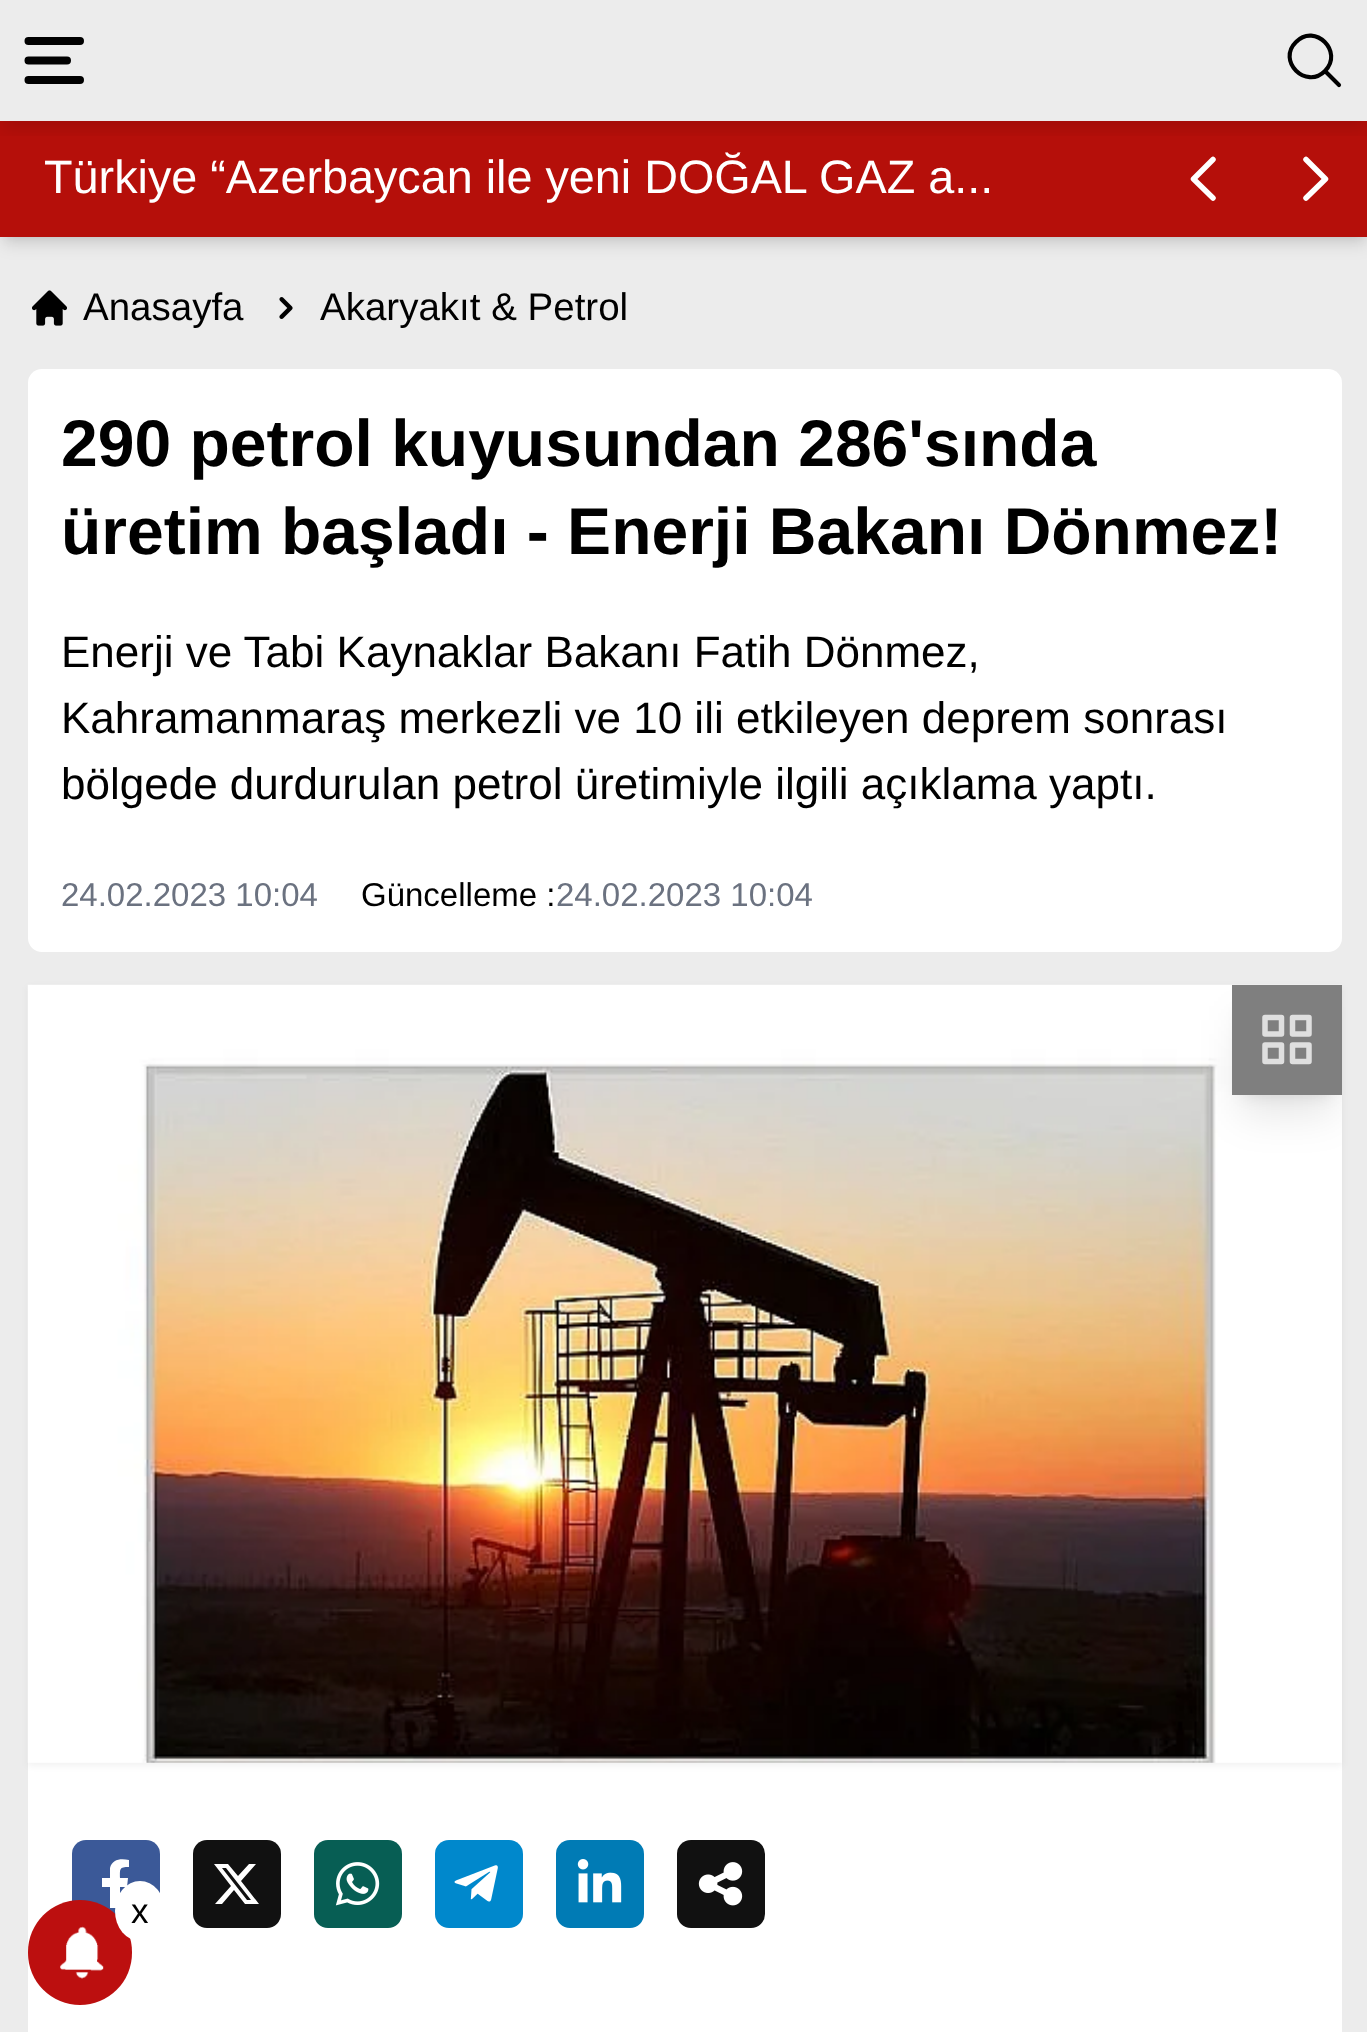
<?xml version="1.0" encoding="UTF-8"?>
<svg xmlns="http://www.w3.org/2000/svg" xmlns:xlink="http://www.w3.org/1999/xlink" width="1367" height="2032">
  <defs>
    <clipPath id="clip1"><rect x="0" y="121" width="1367" height="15" /></clipPath>
    <clipPath id="clip2"><path d="M 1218 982 h 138 v 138 h -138 z m 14 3 h 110 v 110 h -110 z" clip-rule="evenodd" /></clipPath>
    <clipPath id="clip3"><rect x="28" y="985" width="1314" height="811" /></clipPath>
    <clipPath id="clip4"><path d="M 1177 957 h 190 v 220 h -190 z m 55 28 h 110 v 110 h -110 z" clip-rule="evenodd" /></clipPath>
  </defs>
  <rect width="100%" height="100%" fill="#ececec" />
  <rect x="6" y="132" width="1358" height="105" fill="#000000" fill-opacity="0.1" filter="blur(5.5px)" />
  <rect x="3" y="135" width="1364" height="110" fill="#000000" fill-opacity="0.1" filter="blur(8px)" />
  <rect y="121" width="1367" height="116" fill="#b50f0a" />
  <g clip-path="url(#clip1)">
    <rect x="3" y="14" width="1364" height="115" fill="#000000" fill-opacity="0.1" filter="blur(8px)" />
  </g>
  <path d="M 28.5 41 h 51.5 m -51.5 19.5 h 38.5 m -38.5 19.5 h 51.5" fill="none" stroke="#000000" stroke-width="8" stroke-linecap="round" stroke-linejoin="round" />
  <path d="M 1339 85 l -14 -14 m 0 0 c 19 -19 -10 -48.5 -29 -29 c -19.5 19 10 48 29 29 z" fill="none" stroke="#000000" stroke-width="4.1" stroke-linecap="round" stroke-linejoin="round" />
  <path d="M 1213 198 l -19.5 -19 l 19.5 -19.5" fill="none" stroke="#ffffff" stroke-width="5.5" stroke-linecap="round" stroke-linejoin="round" />
  <path d="M 1306 159.5 l 19.5 19.5 l -19.5 19" fill="none" stroke="#ffffff" stroke-width="5.5" stroke-linecap="round" stroke-linejoin="round" />
  <image x="32" y="290" width="35" height="36" xlink:href="image1.png" />
  <image x="279" y="297" width="14" height="22" xlink:href="image2.png" />
  <rect x="28" y="369" width="1314" height="583" rx="14" fill="#ffffff" />
  <rect x="28" y="1762" width="1314" height="270" fill="#ffffff" />
  <rect x="28" y="987" width="1314" height="779" fill="#000000" fill-opacity="0.05" filter="blur(3px)" />
  <image x="27" y="984" width="1315" height="779" xlink:href="image3.png" />
  <g clip-path="url(#clip2)">
    <rect x="1243" y="1007" width="88" height="88" fill="#000000" fill-opacity="0.1" filter="blur(8px)" />
  </g>
  <g clip-path="url(#clip3)">
    <g clip-path="url(#clip4)">
      <rect x="1240" y="1020" width="94" height="94" fill="#000000" fill-opacity="0.1" filter="blur(20.5px)" />
    </g>
  </g>
  <rect x="1232" y="985" width="110" height="110" fill="#000000" fill-opacity="0.5" />
  <path d="M 1265 1017.5 h 16.5 v 16.5 h -16.5 z m 27.5 0 h 16.5 v 16.5 h -16.5 z m -27.5 27.5 h 16.5 v 16.5 h -16.5 z m 27.5 0 h 16.5 v 16.5 h -16.5 z" fill="none" stroke="#dfdfdf" stroke-width="5.5" stroke-linecap="round" stroke-linejoin="round" />
  <rect x="72" y="1840" width="88" height="88" rx="14" fill="#3b5998" />
  <path d="M 127 1887 l 1 -9 h -8 c 0 -9 -1 -11 9 -11 v -7 c -8 -2 -17 -1 -19 8 v 10 h -8 v 9 h 8 v 21 h 10 v -21 z" fill="#ffffff" />
  <rect x="193" y="1840" width="88" height="88" rx="14" fill="#111111" />
  <path d="M 249 1864 h 7 l -15 17 l 18 23 h -14 l -11 -14 l -12 14 h -7 l 16 -18 l -17 -22 h 14 l 10 12 z m -2 36 h 4 l -25 -32 h -4 z" fill="#ffffff" />
  <rect x="314" y="1840" width="88" height="88" rx="14" fill="#075e54" />
  <image x="335" y="1862" width="45" height="44" xlink:href="image4.png" />
  <rect x="435" y="1840" width="88" height="88" rx="14" fill="#0088cc" />
  <image x="454" y="1865" width="44" height="37" xlink:href="image5.png" />
  <rect x="556" y="1840" width="88" height="88" rx="14" fill="#007bb5" />
  <image x="577" y="1859" width="45" height="44" xlink:href="image6.png" />
  <rect x="677" y="1840" width="88" height="88" rx="14" fill="#111111" />
  <image x="698" y="1862" width="45" height="44" xlink:href="image7.png" />
  <rect x="28" y="1900" width="104" height="105" rx="52" fill="#bc0f0f" />
  <ellipse cx="140" cy="1911" rx="25" ry="30" fill="#ffffff" />
  <image x="60" y="1926" width="44" height="53" xlink:href="image8.png" />
  <text x="44" y="193" style="font-family: Liberation Sans; font-size: 46.75px; fill: #ffffff">Türkiye “Azerbaycan ile yeni DOĞAL GAZ a...</text>
  <text x="83" y="320" style="font-family: Liberation Sans; font-size: 38.5px; fill: #000000">Anasayfa</text>
  <text x="320" y="320" style="font-family: Liberation Sans; font-size: 38.5px; fill: #000000">Akaryakıt &amp; Petrol</text>
  <text x="61" y="466" style="font-family: Liberation Sans; font-size: 66px; font-weight: bold; fill: #000000">290 petrol kuyusundan 286'sında</text>
  <text x="61" y="554" style="font-family: Liberation Sans; font-size: 66px; font-weight: bold; fill: #000000">üretim başladı - Enerji Bakanı Dönmez!</text>
  <text x="61" y="667" style="font-family: Liberation Sans; font-size: 44px; fill: #000000">Enerji ve Tabi Kaynaklar Bakanı Fatih Dönmez,</text>
  <text x="61" y="733" style="font-family: Liberation Sans; font-size: 44px; fill: #000000">Kahramanmaraş merkezli ve 10 ili etkileyen deprem sonrası</text>
  <text x="61" y="799" style="font-family: Liberation Sans; font-size: 44px; fill: #000000">bölgede durdurulan petrol üretimiyle ilgili açıklama yaptı.</text>
  <text x="61" y="906" style="font-family: Liberation Sans; font-size: 33px; fill: #6b7280">24.02.2023 10:04</text>
  <text x="361" y="906" style="font-family: Liberation Sans; font-size: 33px; fill: #000000">Güncelleme :</text>
  <text x="556" y="906" style="font-family: Liberation Sans; font-size: 33px; fill: #6b7280">24.02.2023 10:04</text>
  <text x="131" y="1923" style="font-family: Liberation Sans; font-size: 35px; fill: #000000">x</text>
</svg>
